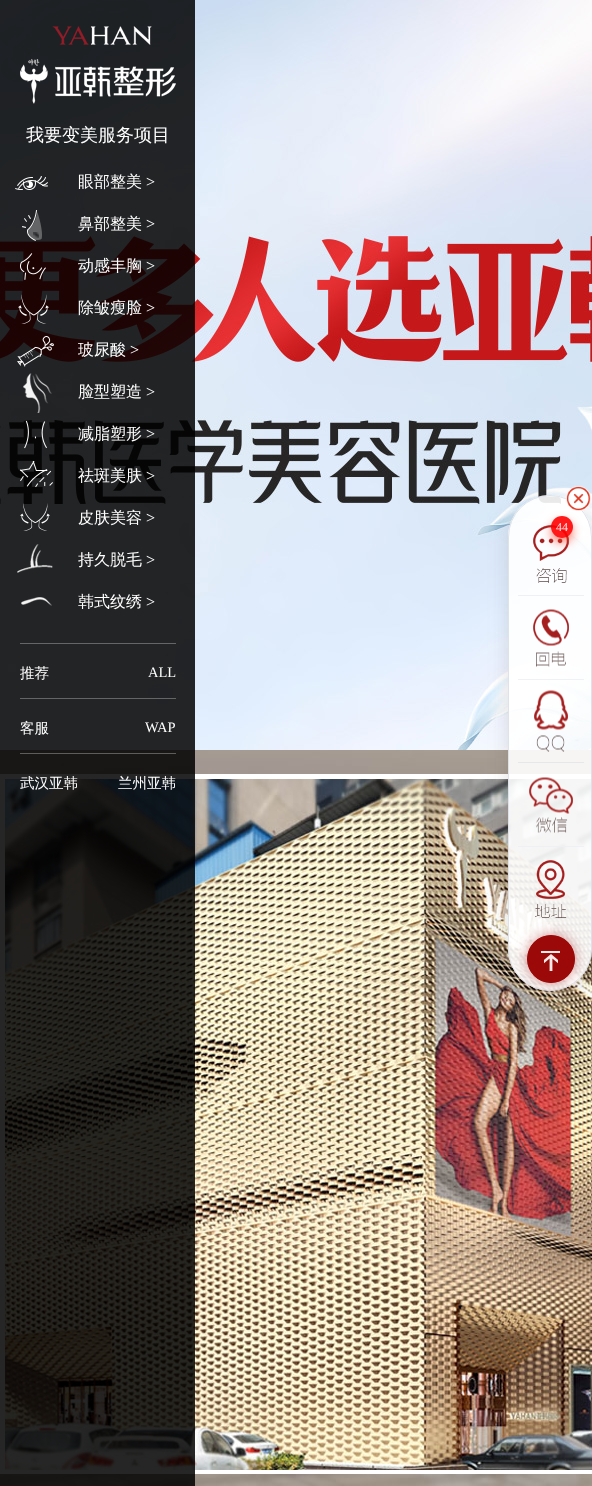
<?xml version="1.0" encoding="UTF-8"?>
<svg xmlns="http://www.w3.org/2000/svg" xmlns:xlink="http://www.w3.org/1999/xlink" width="592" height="1486">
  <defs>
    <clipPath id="clip1"><path d="M 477 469 h 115 v 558 h -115 z m 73 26 c 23 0 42 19 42 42 v 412 c 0 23 -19 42 -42 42 c -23 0 -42 -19 -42 -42 v -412 c 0 -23 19 -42 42 -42 z" clip-rule="evenodd" /></clipPath>
    <clipPath id="clip2"><path d="M 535 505 h 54 v 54 h -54 z m 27 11 c 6 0 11 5 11 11 c 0 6 -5 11 -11 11 c -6 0 -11 -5 -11 -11 c 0 -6 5 -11 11 -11 z" clip-rule="evenodd" /></clipPath>
    <clipPath id="clip3"><path d="M 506 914 h 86 v 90 h -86 z m 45 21 c 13.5 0 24 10.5 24 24 c 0 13.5 -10.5 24 -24 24 c -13.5 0 -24 -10.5 -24 -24 c 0 -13.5 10.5 -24 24 -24 z" clip-rule="evenodd" /></clipPath>
  </defs>
  <rect width="100%" height="100%" fill="#ffffff" />
  <image x="0" y="0" width="592" height="750" xlink:href="image1.png" />
  <image x="0" y="750" width="592" height="736" xlink:href="image21.png" />
  <rect y="774" width="592" height="700" fill="#ffffff" />
  <image x="5" y="779" width="587" height="691" xlink:href="image22.png" />
  <rect width="195" height="1486" fill="#000000" fill-opacity="0.85" />
  <image x="20" y="26" width="156" height="78" xlink:href="image2.png" />
  <image x="15" y="176" width="33" height="14" xlink:href="image3.png" />
  <image x="22" y="210" width="20" height="31" xlink:href="image4.png" />
  <image x="20" y="253" width="26" height="27" xlink:href="image5.png" />
  <image x="18" y="294" width="31" height="30" xlink:href="image6.png" />
  <image x="17" y="336" width="37" height="31" xlink:href="image7.png" />
  <image x="23" y="373" width="29" height="40" xlink:href="image8.png" />
  <image x="24" y="420" width="23" height="29" xlink:href="image9.png" />
  <image x="20" y="461" width="33" height="27" xlink:href="image10.png" />
  <image x="20" y="503" width="30" height="28" xlink:href="image11.png" />
  <image x="17" y="544" width="36" height="29" xlink:href="image12.png" />
  <image x="21" y="597" width="31" height="9" xlink:href="image13.png" />
  <rect x="20" y="643" width="156" height="1" fill="#656667" />
  <rect x="20" y="698" width="156" height="1" fill="#646567" />
  <rect x="20" y="753" width="156" height="1" fill="#5e5d5c" />
  <g clip-path="url(#clip1)">
    <rect x="508" y="500" width="84" height="496" rx="42" fill="#5f504e" fill-opacity="0.18" filter="blur(10px)" />
  </g>
  <rect x="508" y="495" width="84" height="496" rx="42" fill="#ffffff" fill-opacity="0.9" />
  <rect x="508.5" y="495.5" width="83" height="495" rx="41.5" fill="none" stroke="#dcdfe7" stroke-opacity="0.9" />
  <circle cx="578.5" cy="498.5" r="12.5" fill="#ffffff" fill-opacity="0.9" />
  <image x="566" y="486" width="25" height="25" xlink:href="image14.png" />
  <rect x="518" y="595" width="66" height="1" fill="#eff0f4" />
  <image x="533" y="525" width="36" height="58" xlink:href="image15.png" />
  <g clip-path="url(#clip2)">
    <rect x="551" y="521" width="22" height="22" rx="11" fill="#ff3c1f" fill-opacity="0.62" filter="blur(5px)" />
  </g>
  <circle cx="562" cy="527" r="11" fill="#ff0000" fill-opacity="0.9" />
  <rect x="518" y="679" width="66" height="1" fill="#eff1f4" />
  <image x="533" y="609" width="36" height="58" xlink:href="image16.png" />
  <rect x="518" y="762" width="66" height="1" fill="#e6e7e9" />
  <image x="534" y="690" width="34" height="62" xlink:href="image17.png" />
  <rect x="518" y="846" width="66" height="1" fill="#edeff3" fill-opacity="0.9" />
  <image x="529" y="777" width="44" height="56" xlink:href="image18.png" />
  <image x="535" y="860" width="32" height="58" xlink:href="image19.png" />
  <g clip-path="url(#clip3)">
    <rect x="527" y="935" width="48" height="48" rx="24" fill="#9c0707" fill-opacity="0.45" filter="blur(6.5px)" />
  </g>
  <circle cx="551" cy="959" r="24" fill="#9c0707" fill-opacity="0.9" />
  <image x="527" y="935" width="48" height="48" xlink:href="image20.png" />
  <text x="26" y="141" style="font-family: WenQuanYi Zen Hei; font-size: 18px; font-weight: 500; fill: #ffffff">我要变美服务项目</text>
  <text x="78" y="187" style="font-family: WenQuanYi Zen Hei; font-size: 16px; font-weight: 500; fill: #ffffff">眼部整美</text>
  <text x="146" y="187" style="font-family: Liberation Serif; font-size: 16px; fill: #ffffff">&gt;</text>
  <text x="78" y="229" style="font-family: WenQuanYi Zen Hei; font-size: 16px; font-weight: 500; fill: #ffffff">鼻部整美</text>
  <text x="146" y="229" style="font-family: Liberation Serif; font-size: 16px; fill: #ffffff">&gt;</text>
  <text x="78" y="271" style="font-family: WenQuanYi Zen Hei; font-size: 16px; font-weight: 500; fill: #ffffff">动感丰胸</text>
  <text x="146" y="271" style="font-family: Liberation Serif; font-size: 16px; fill: #ffffff">&gt;</text>
  <text x="78" y="313" style="font-family: WenQuanYi Zen Hei; font-size: 16px; font-weight: 500; fill: #ffffff">除皱瘦脸</text>
  <text x="146" y="313" style="font-family: Liberation Serif; font-size: 16px; fill: #ffffff">&gt;</text>
  <text x="78" y="355" style="font-family: WenQuanYi Zen Hei; font-size: 16px; font-weight: 500; fill: #ffffff">玻尿酸</text>
  <text x="130" y="355" style="font-family: Liberation Serif; font-size: 16px; fill: #ffffff">&gt;</text>
  <text x="78" y="397" style="font-family: WenQuanYi Zen Hei; font-size: 16px; font-weight: 500; fill: #ffffff">脸型塑造</text>
  <text x="146" y="397" style="font-family: Liberation Serif; font-size: 16px; fill: #ffffff">&gt;</text>
  <text x="78" y="439" style="font-family: WenQuanYi Zen Hei; font-size: 16px; font-weight: 500; fill: #ffffff">减脂塑形</text>
  <text x="146" y="439" style="font-family: Liberation Serif; font-size: 16px; fill: #ffffff">&gt;</text>
  <text x="78" y="481" style="font-family: WenQuanYi Zen Hei; font-size: 16px; font-weight: 500; fill: #ffffff">祛斑美肤</text>
  <text x="146" y="481" style="font-family: Liberation Serif; font-size: 16px; fill: #ffffff">&gt;</text>
  <text x="78" y="523" style="font-family: WenQuanYi Zen Hei; font-size: 16px; font-weight: 500; fill: #ffffff">皮肤美容</text>
  <text x="146" y="523" style="font-family: Liberation Serif; font-size: 16px; fill: #ffffff">&gt;</text>
  <text x="78" y="565" style="font-family: WenQuanYi Zen Hei; font-size: 16px; font-weight: 500; fill: #ffffff">持久脱毛</text>
  <text x="146" y="565" style="font-family: Liberation Serif; font-size: 16px; fill: #ffffff">&gt;</text>
  <text x="78" y="607" style="font-family: WenQuanYi Zen Hei; font-size: 16px; font-weight: 500; fill: #ffffff">韩式纹绣</text>
  <text x="146" y="607" style="font-family: Liberation Serif; font-size: 16px; fill: #ffffff">&gt;</text>
  <text x="20" y="678" style="font-family: WenQuanYi Zen Hei; font-size: 14.5px; font-weight: 500; fill: #ffffff">推荐</text>
  <text x="148" y="677" style="font-family: Liberation Serif; font-size: 14.5px; fill: #ffffff">ALL</text>
  <text x="20" y="733" style="font-family: WenQuanYi Zen Hei; font-size: 14.5px; font-weight: 500; fill: #ffffff">客服</text>
  <text x="145" y="732" style="font-family: Liberation Serif; font-size: 14.5px; fill: #ffffff">WAP</text>
  <text x="20" y="788" style="font-family: WenQuanYi Zen Hei; font-size: 14.5px; font-weight: 500; fill: #ffffff">武汉亚韩</text>
  <text x="118" y="788" style="font-family: WenQuanYi Zen Hei; font-size: 14.5px; font-weight: 500; fill: #ffffff">兰州亚韩</text>
  <text x="556" y="531" style="font-family: Liberation Serif; font-size: 12px; fill: #ffe8e8">44</text>
</svg>
